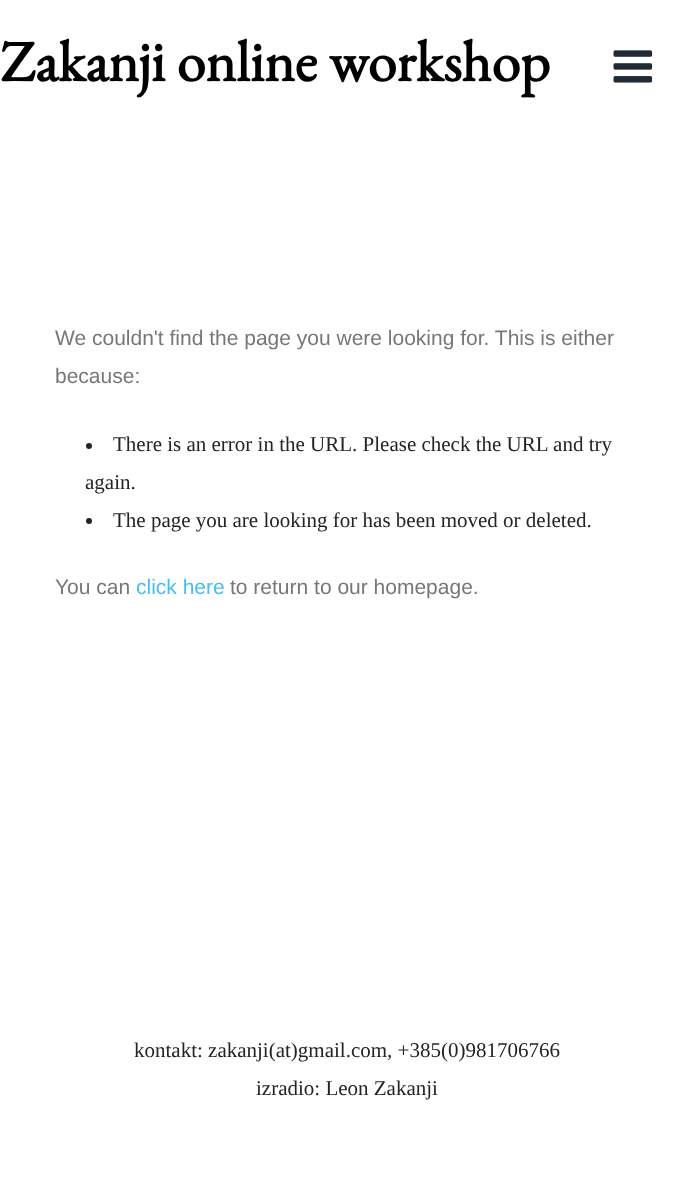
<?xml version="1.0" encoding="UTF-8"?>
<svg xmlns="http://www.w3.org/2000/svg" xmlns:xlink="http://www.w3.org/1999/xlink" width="694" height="1196">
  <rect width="100%" height="100%" fill="#ffffff" />
  <image x="613" y="50" width="40" height="33" xlink:href="image1.png" />
  <circle cx="89" cy="446" r="3" fill="#242424" />
  <circle cx="89" cy="521" r="3" fill="#242424" />
  <text x="0" y="81" style="font-family: EB Garamond; font-size: 57.9px; font-weight: bold; fill: #000000">Zakanji online workshop</text>
  <text x="55" y="345" style="font-family: Liberation Sans; font-size: 21px; fill: #777777">We couldn't find the page you were looking for. This is either</text>
  <text x="55" y="383" style="font-family: Liberation Sans; font-size: 21px; fill: #777777">because:</text>
  <text x="113" y="451" style="font-family: Liberation Serif; font-size: 21px; fill: #242424">There is an error in the URL. Please check the URL and try</text>
  <text x="85" y="489" style="font-family: Liberation Serif; font-size: 21px; fill: #242424">again.</text>
  <text x="113" y="527" style="font-family: Liberation Serif; font-size: 21px; fill: #242424">The page you are looking for has been moved or deleted.</text>
  <text x="55" y="594" style="font-family: Liberation Sans; font-size: 21px; fill: #777777">You can</text>
  <text x="136" y="594" style="font-family: Liberation Sans; font-size: 21px; fill: #4bbeec">click here</text>
  <text x="230" y="594" style="font-family: Liberation Sans; font-size: 21px; fill: #777777">to return to our homepage.</text>
  <text x="134" y="1057" style="font-family: Liberation Serif; font-size: 21px; fill: #242424">kontakt: zakanji(at)gmail.com, +385(0)981706766</text>
  <text x="256" y="1095" style="font-family: Liberation Serif; font-size: 21px; fill: #242424">izradio: Leon Zakanji</text>
</svg>
